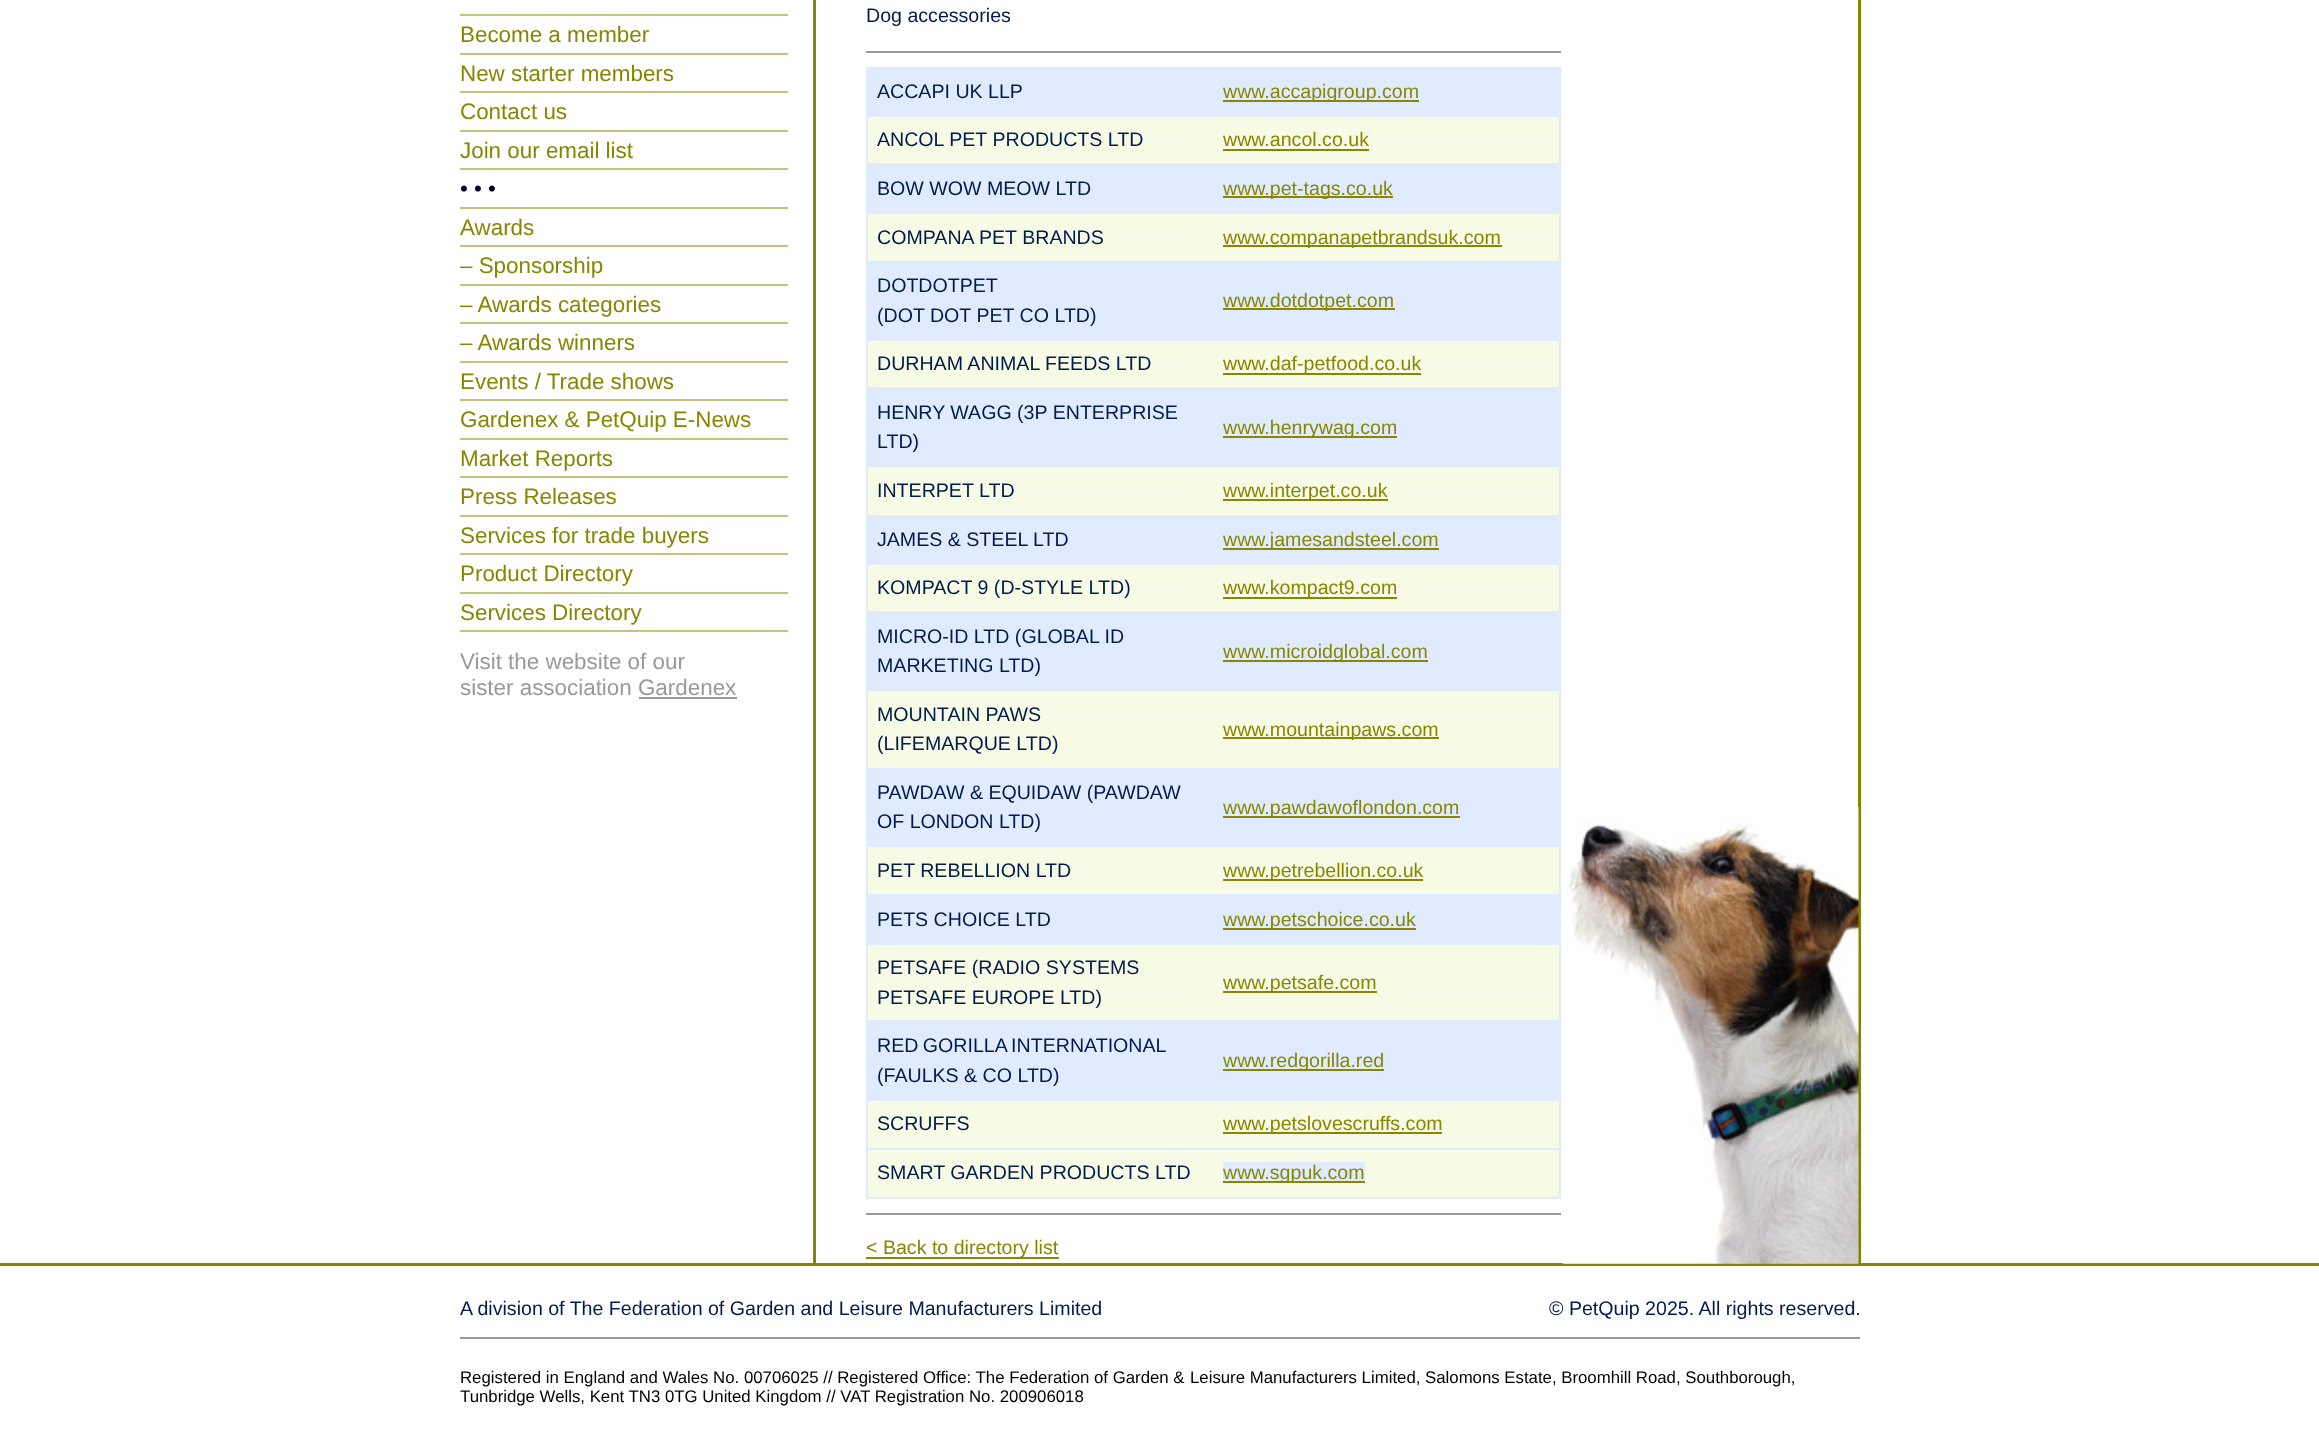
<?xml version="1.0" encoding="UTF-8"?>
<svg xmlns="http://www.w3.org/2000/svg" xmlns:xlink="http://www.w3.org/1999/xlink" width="2319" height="1433">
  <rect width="100%" height="100%" fill="#ffffff" />
  <rect x="460" y="14" width="328" height="2" fill="#c3c37d" />
  <rect x="460" y="53" width="328" height="2" fill="#c3c37d" />
  <rect x="460" y="91" width="328" height="2" fill="#c3c37d" />
  <rect x="460" y="130" width="328" height="2" fill="#c3c37d" />
  <rect x="460" y="168" width="328" height="2" fill="#c3c37d" />
  <rect x="460" y="207" width="328" height="2" fill="#c3c37d" />
  <rect x="460" y="245" width="328" height="2" fill="#c3c37d" />
  <rect x="460" y="284" width="328" height="2" fill="#c3c37d" />
  <rect x="460" y="322" width="328" height="2" fill="#c3c37d" />
  <rect x="460" y="361" width="328" height="2" fill="#c3c37d" />
  <rect x="460" y="399" width="328" height="2" fill="#c3c37d" />
  <rect x="460" y="438" width="328" height="2" fill="#c3c37d" />
  <rect x="460" y="476" width="328" height="2" fill="#c3c37d" />
  <rect x="460" y="515" width="328" height="2" fill="#c3c37d" />
  <rect x="460" y="553" width="328" height="2" fill="#c3c37d" />
  <rect x="460" y="592" width="328" height="2" fill="#c3c37d" />
  <rect x="460" y="630" width="328" height="2" fill="#c3c37d" />
  <rect x="639" y="697" width="98" height="2" fill="#999999" />
  <rect x="813" width="3" height="1264" fill="#848700" />
  <rect x="866" y="51" width="695" height="2" fill="#999999" />
  <rect x="866" y="67" width="695" height="1132" fill="#e1ebff" />
  <rect x="1223" y="100" width="196" height="2" fill="#888700" />
  <rect x="868" y="117" width="691" height="46" fill="#f7fae5" />
  <rect x="1223" y="149" width="146" height="2" fill="#888700" />
  <rect x="1223" y="196" width="170" height="2" fill="#888700" />
  <rect x="868" y="214" width="691" height="47" fill="#f7fae5" />
  <rect x="1223" y="245" width="279" height="2" fill="#888700" />
  <rect x="1223" y="308" width="172" height="2" fill="#888700" />
  <rect x="868" y="341" width="691" height="46" fill="#f7fae5" />
  <rect x="1223" y="373" width="198" height="2" fill="#888700" />
  <rect x="1223" y="436" width="174" height="2" fill="#888700" />
  <rect x="868" y="467" width="691" height="48" fill="#f7fae5" />
  <rect x="1223" y="499" width="165" height="2" fill="#888700" />
  <rect x="1223" y="548" width="216" height="2" fill="#888700" />
  <rect x="868" y="565" width="691" height="46" fill="#f7fae5" />
  <rect x="1223" y="597" width="174" height="2" fill="#888700" />
  <rect x="1223" y="660" width="205" height="2" fill="#888700" />
  <rect x="868" y="691" width="691" height="77" fill="#f7fae5" />
  <rect x="1223" y="737" width="216" height="2" fill="#888700" />
  <rect x="1223" y="816" width="237" height="2" fill="#888700" />
  <rect x="868" y="847" width="691" height="47" fill="#f7fae5" />
  <rect x="1223" y="879" width="200" height="2" fill="#888700" />
  <rect x="1223" y="928" width="193" height="2" fill="#888700" />
  <rect x="868" y="945" width="691" height="75" fill="#f7fae5" />
  <rect x="1223" y="991" width="154" height="2" fill="#888700" />
  <rect x="1223" y="1069" width="161" height="2" fill="#888700" />
  <rect x="868" y="1101" width="691" height="47" fill="#f7fae5" />
  <rect x="1223" y="1132" width="219" height="2" fill="#888700" />
  <rect x="868" y="1150" width="691" height="47" fill="#f7fae5" />
  <rect x="1223" y="1162" width="142" height="19" fill="#e1ebff" />
  <rect x="1223" y="1181" width="142" height="2" fill="#888700" />
  <rect x="866" y="1213" width="695" height="2" fill="#999999" />
  <rect x="866" y="1257" width="193" height="2" fill="#888700" />
  <rect x="1858" width="3" height="1264" fill="#848700" />
  <rect y="1263" width="2319" height="3" fill="#848700" />
  <image x="1562" y="807" width="299" height="457" xlink:href="image1.png" />
  <rect x="460" y="1337" width="1400" height="2" fill="#999999" />
  <text x="460" y="42" style="font-family: Liberation Sans; font-size: 22.4px; fill: #868700">Become a member</text>
  <text x="460" y="81" style="font-family: Liberation Sans; font-size: 22.4px; fill: #868700">New starter members</text>
  <text x="460" y="119" style="font-family: Liberation Sans; font-size: 22.4px; fill: #868700">Contact us</text>
  <text x="460" y="158" style="font-family: Liberation Sans; font-size: 22.4px; fill: #868700">Join our email list</text>
  <text x="460" y="196" style="font-family: Liberation Sans; font-size: 22.4px; fill: #000033">• • •</text>
  <text x="460" y="235" style="font-family: Liberation Sans; font-size: 22.4px; fill: #868700">Awards</text>
  <text x="460" y="273" style="font-family: Liberation Sans; font-size: 22.4px; fill: #868700">– Sponsorship</text>
  <text x="460" y="312" style="font-family: Liberation Sans; font-size: 22.4px; fill: #868700">– Awards categories</text>
  <text x="460" y="350" style="font-family: Liberation Sans; font-size: 22.4px; fill: #868700">– Awards winners</text>
  <text x="460" y="389" style="font-family: Liberation Sans; font-size: 22.4px; fill: #868700">Events / Trade shows</text>
  <text x="460" y="427" style="font-family: Liberation Sans; font-size: 22.4px; fill: #868700">Gardenex &amp; PetQuip E-News</text>
  <text x="460" y="466" style="font-family: Liberation Sans; font-size: 22.4px; fill: #868700">Market Reports</text>
  <text x="460" y="504" style="font-family: Liberation Sans; font-size: 22.4px; fill: #868700">Press Releases</text>
  <text x="460" y="543" style="font-family: Liberation Sans; font-size: 22.4px; fill: #868700">Services for trade buyers</text>
  <text x="460" y="581" style="font-family: Liberation Sans; font-size: 22.4px; fill: #868700">Product Directory</text>
  <text x="460" y="620" style="font-family: Liberation Sans; font-size: 22.4px; fill: #868700">Services Directory</text>
  <text x="460" y="669" style="font-family: Liberation Sans; font-size: 22.4px; fill: #999999">Visit the website of our</text>
  <text x="460" y="695" style="font-family: Liberation Sans; font-size: 22.4px; fill: #999999">sister association Gardenex</text>
  <text x="866" y="22" style="font-family: Liberation Sans; font-size: 19.6px; fill: #001b4c">Dog accessories</text>
  <text x="877" y="98" style="font-family: Liberation Sans; font-size: 19.6px; fill: #001b4c">ACCAPI UK LLP</text>
  <text x="1223" y="98" style="font-family: Liberation Sans; font-size: 19.6px; fill: #868700">www.accapigroup.com</text>
  <text x="877" y="146" style="font-family: Liberation Sans; font-size: 19.6px; fill: #001b4c">ANCOL PET PRODUCTS LTD</text>
  <text x="1223" y="146" style="font-family: Liberation Sans; font-size: 19.6px; fill: #868700">www.ancol.co.uk</text>
  <text x="877" y="195" style="font-family: Liberation Sans; font-size: 19.6px; fill: #001b4c">BOW WOW MEOW LTD</text>
  <text x="1223" y="195" style="font-family: Liberation Sans; font-size: 19.6px; fill: #868700">www.pet-tags.co.uk</text>
  <text x="877" y="244" style="font-family: Liberation Sans; font-size: 19.6px; fill: #001b4c">COMPANA PET BRANDS</text>
  <text x="1223" y="244" style="font-family: Liberation Sans; font-size: 19.6px; fill: #868700">www.companapetbrandsuk.com</text>
  <text x="877" y="292" style="font-family: Liberation Sans; font-size: 19.6px; fill: #001b4c">DOTDOTPET</text>
  <text x="877" y="322" style="font-family: Liberation Sans; font-size: 19.6px; fill: #001b4c">(DOT DOT PET CO LTD)</text>
  <text x="1223" y="307" style="font-family: Liberation Sans; font-size: 19.6px; fill: #868700">www.dotdotpet.com</text>
  <text x="877" y="370" style="font-family: Liberation Sans; font-size: 19.6px; fill: #001b4c">DURHAM ANIMAL FEEDS LTD</text>
  <text x="1223" y="370" style="font-family: Liberation Sans; font-size: 19.6px; fill: #868700">www.daf-petfood.co.uk</text>
  <text x="877" y="419" style="font-family: Liberation Sans; font-size: 19.6px; fill: #001b4c">HENRY WAGG (3P ENTERPRISE</text>
  <text x="877" y="448" style="font-family: Liberation Sans; font-size: 19.6px; fill: #001b4c">LTD)</text>
  <text x="1223" y="434" style="font-family: Liberation Sans; font-size: 19.6px; fill: #868700">www.henrywag.com</text>
  <text x="877" y="497" style="font-family: Liberation Sans; font-size: 19.6px; fill: #001b4c">INTERPET LTD</text>
  <text x="1223" y="497" style="font-family: Liberation Sans; font-size: 19.6px; fill: #868700">www.interpet.co.uk</text>
  <text x="877" y="546" style="font-family: Liberation Sans; font-size: 19.6px; fill: #001b4c">JAMES &amp; STEEL LTD</text>
  <text x="1223" y="546" style="font-family: Liberation Sans; font-size: 19.6px; fill: #868700">www.jamesandsteel.com</text>
  <text x="877" y="594" style="font-family: Liberation Sans; font-size: 19.6px; fill: #001b4c">KOMPACT 9 (D-STYLE LTD)</text>
  <text x="1223" y="594" style="font-family: Liberation Sans; font-size: 19.6px; fill: #868700">www.kompact9.com</text>
  <text x="877" y="643" style="font-family: Liberation Sans; font-size: 19.6px; fill: #001b4c">MICRO-ID LTD (GLOBAL ID</text>
  <text x="877" y="672" style="font-family: Liberation Sans; font-size: 19.6px; fill: #001b4c">MARKETING LTD)</text>
  <text x="1223" y="658" style="font-family: Liberation Sans; font-size: 19.6px; fill: #868700">www.microidglobal.com</text>
  <text x="877" y="721" style="font-family: Liberation Sans; font-size: 19.6px; fill: #001b4c">MOUNTAIN PAWS</text>
  <text x="877" y="750" style="font-family: Liberation Sans; font-size: 19.6px; fill: #001b4c">(LIFEMARQUE LTD)</text>
  <text x="1223" y="736" style="font-family: Liberation Sans; font-size: 19.6px; fill: #868700">www.mountainpaws.com</text>
  <text x="877" y="799" style="font-family: Liberation Sans; font-size: 19.6px; fill: #001b4c">PAWDAW &amp; EQUIDAW (PAWDAW</text>
  <text x="877" y="828" style="font-family: Liberation Sans; font-size: 19.6px; fill: #001b4c">OF LONDON LTD)</text>
  <text x="1223" y="814" style="font-family: Liberation Sans; font-size: 19.6px; fill: #868700">www.pawdawoflondon.com</text>
  <text x="877" y="877" style="font-family: Liberation Sans; font-size: 19.6px; fill: #001b4c">PET REBELLION LTD</text>
  <text x="1223" y="877" style="font-family: Liberation Sans; font-size: 19.6px; fill: #868700">www.petrebellion.co.uk</text>
  <text x="877" y="926" style="font-family: Liberation Sans; font-size: 19.6px; fill: #001b4c">PETS CHOICE LTD</text>
  <text x="1223" y="926" style="font-family: Liberation Sans; font-size: 19.6px; fill: #868700">www.petschoice.co.uk</text>
  <text x="877" y="974" style="font-family: Liberation Sans; font-size: 19.6px; fill: #001b4c">PETSAFE (RADIO SYSTEMS</text>
  <text x="877" y="1004" style="font-family: Liberation Sans; font-size: 19.6px; fill: #001b4c">PETSAFE EUROPE LTD)</text>
  <text x="1223" y="989" style="font-family: Liberation Sans; font-size: 19.6px; fill: #868700">www.petsafe.com</text>
  <text x="877" y="1052" word-spacing="-1" style="font-family: Liberation Sans; font-size: 19.6px; fill: #001b4c">RED GORILLA INTERNATIONAL</text>
  <text x="877" y="1082" style="font-family: Liberation Sans; font-size: 19.6px; fill: #001b4c">(FAULKS &amp; CO LTD)</text>
  <text x="1223" y="1067" style="font-family: Liberation Sans; font-size: 19.6px; fill: #868700">www.redgorilla.red</text>
  <text x="877" y="1130" style="font-family: Liberation Sans; font-size: 19.6px; fill: #001b4c">SCRUFFS</text>
  <text x="1223" y="1130" style="font-family: Liberation Sans; font-size: 19.6px; fill: #868700">www.petslovescruffs.com</text>
  <text x="877" y="1179" style="font-family: Liberation Sans; font-size: 19.6px; fill: #001b4c">SMART GARDEN PRODUCTS LTD</text>
  <text x="1223" y="1179" style="font-family: Liberation Sans; font-size: 19.6px; fill: #868700">www.sgpuk.com</text>
  <text x="866" y="1254" style="font-family: Liberation Sans; font-size: 19.6px; fill: #868700">&lt; Back to directory list</text>
  <text x="460" y="1315" style="font-family: Liberation Sans; font-size: 19.6px; fill: #001b4c">A division of The Federation of Garden and Leisure Manufacturers Limited</text>
  <text x="1549" y="1315" style="font-family: Liberation Sans; font-size: 19.6px; fill: #001b4c">© PetQuip 2025. All rights reserved.</text>
  <text x="460" y="1383" style="font-family: Liberation Sans; font-size: 16.8px; fill: #000000">Registered in England and Wales No. 00706025 // Registered Office: The Federation of Garden &amp;</text>
  <text x="1190" y="1383" style="font-family: Liberation Sans; font-size: 16.8px; fill: #000000">Leisure Manufacturers Limited, Salomons Estate, Broomhill Road, Southborough,</text>
  <text x="460" y="1402" style="font-family: Liberation Sans; font-size: 16.8px; fill: #000000">Tunbridge Wells, Kent TN3 0TG United Kingdom // VAT Registration No. 200906018</text>
</svg>
